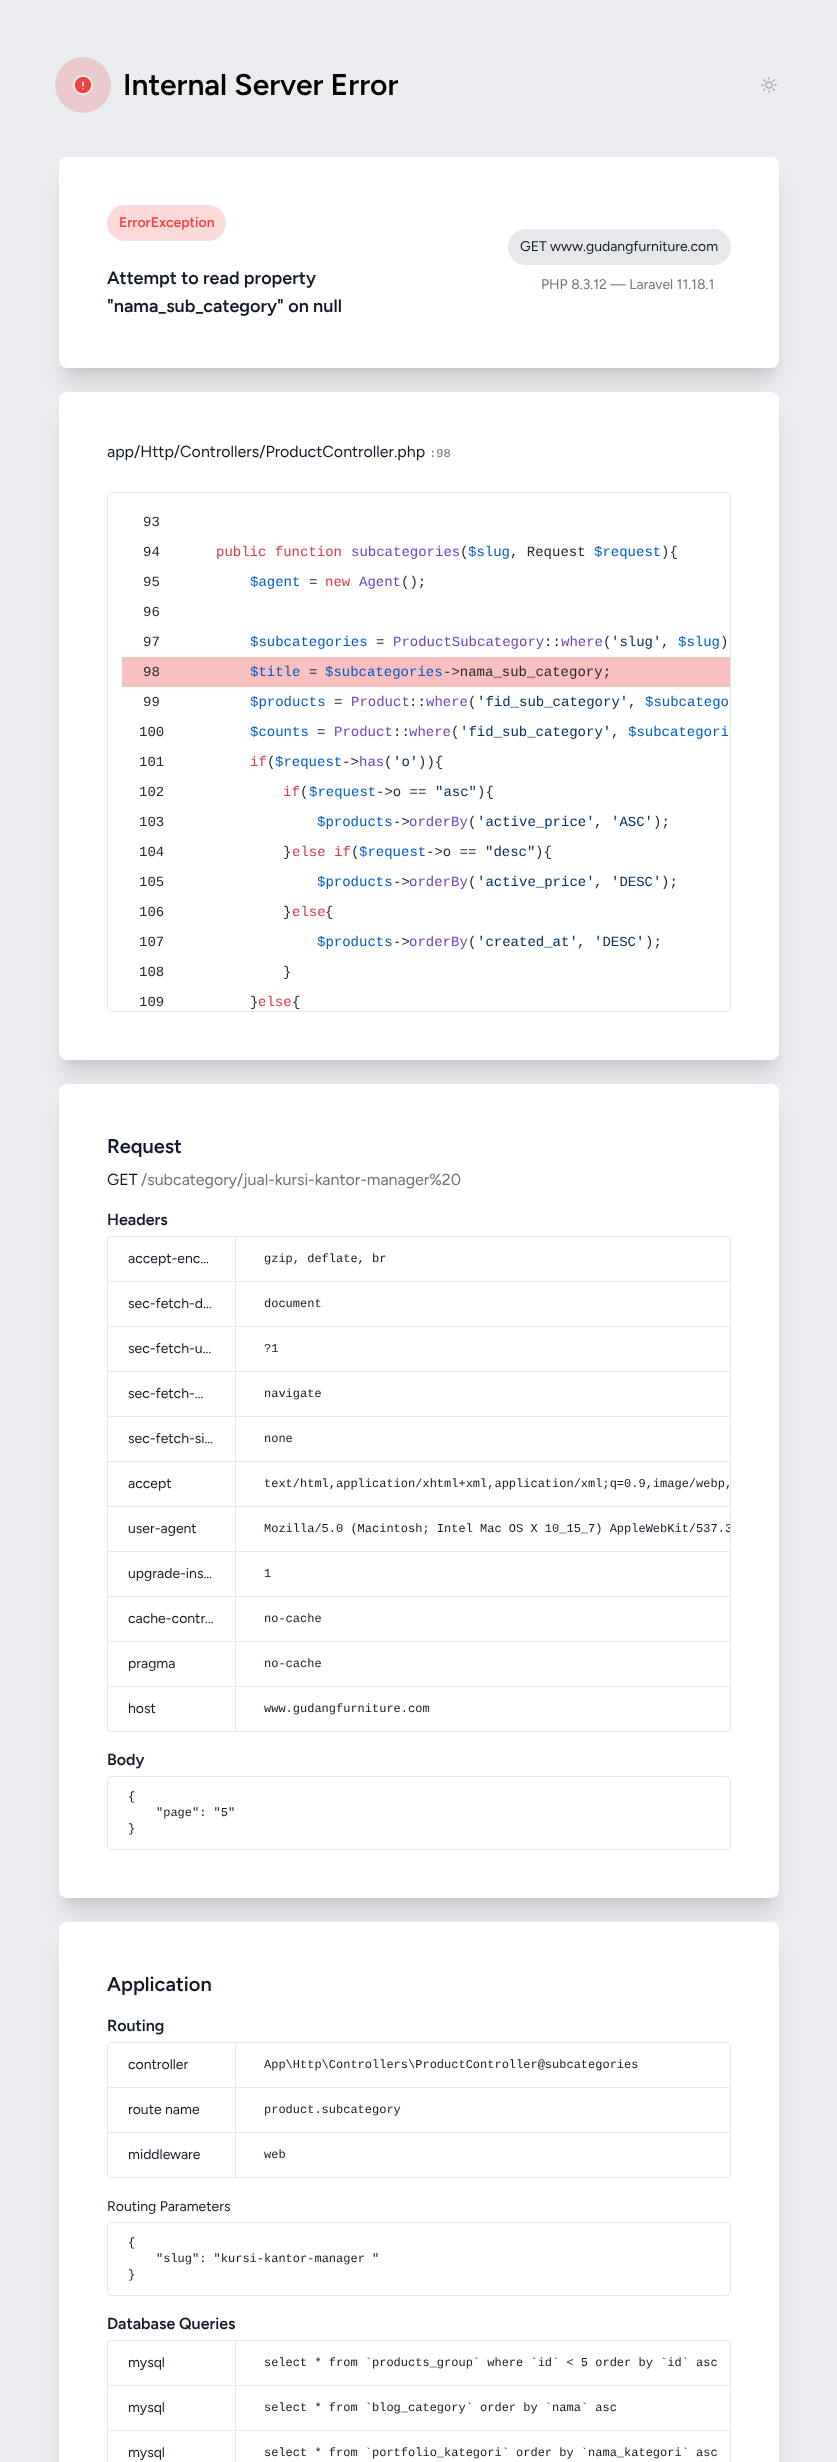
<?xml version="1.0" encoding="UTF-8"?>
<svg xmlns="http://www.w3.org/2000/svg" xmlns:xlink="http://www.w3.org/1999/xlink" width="837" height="2462">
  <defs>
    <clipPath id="clip1"><rect x="244" y="1521" width="486" height="16" /></clipPath>
  </defs>
  <rect width="100%" height="100%" fill="#eaecef" />
  <circle cx="83" cy="85" r="28" fill="#ebcacd" />
  <image x="73" y="75" width="20" height="20" xlink:href="image1.png" />
  <image x="761" y="77" width="16" height="16" xlink:href="image2.png" />
  <rect x="65" y="171" width="708" height="199" rx="2" fill="#000000" fill-opacity="0.1" filter="blur(5px)" />
  <rect x="64" y="182" width="710" height="201" rx="3" fill="#000000" fill-opacity="0.1" filter="blur(12.5px)" />
  <rect x="59" y="157" width="720" height="211" rx="8" fill="#ffffff" />
  <rect x="107" y="205" width="119" height="36" rx="18" fill="#fcdada" />
  <rect x="508" y="229" width="223" height="36" rx="18" fill="#e5e7eb" />
  <rect x="65" y="406" width="708" height="656" rx="2" fill="#000000" fill-opacity="0.1" filter="blur(5px)" />
  <rect x="64" y="417" width="710" height="658" rx="3" fill="#000000" fill-opacity="0.1" filter="blur(12.5px)" />
  <rect x="59" y="392" width="720" height="668" rx="8" fill="#ffffff" />
  <rect x="107.5" y="492.5" width="623" height="519" rx="5.5" fill="none" stroke="#e5e7eb" />
  <rect x="122" y="657" width="608" height="30" fill="#fabfbf" />
  <rect x="65" y="1098" width="708" height="802" rx="2" fill="#000000" fill-opacity="0.1" filter="blur(5px)" />
  <rect x="64" y="1109" width="710" height="804" rx="3" fill="#000000" fill-opacity="0.1" filter="blur(12.5px)" />
  <rect x="59" y="1084" width="720" height="814" rx="8" fill="#ffffff" />
  <rect x="107.5" y="1236.5" width="623" height="495" rx="3.5" fill="none" stroke="#e5e7eb" />
  <rect x="235" y="1237" width="1" height="44" fill="#e5e7eb" />
  <rect x="108" y="1281" width="622" height="1" fill="#e5e7eb" />
  <rect x="235" y="1282" width="1" height="44" fill="#e5e7eb" />
  <rect x="108" y="1326" width="622" height="1" fill="#e5e7eb" />
  <rect x="235" y="1327" width="1" height="44" fill="#e5e7eb" />
  <rect x="108" y="1371" width="622" height="1" fill="#e5e7eb" />
  <rect x="235" y="1372" width="1" height="44" fill="#e5e7eb" />
  <rect x="108" y="1416" width="622" height="1" fill="#e5e7eb" />
  <rect x="235" y="1417" width="1" height="44" fill="#e5e7eb" />
  <rect x="108" y="1461" width="622" height="1" fill="#e5e7eb" />
  <rect x="235" y="1462" width="1" height="44" fill="#e5e7eb" />
  <rect x="108" y="1506" width="622" height="1" fill="#e5e7eb" />
  <rect x="235" y="1507" width="1" height="44" fill="#e5e7eb" />
  <rect x="108" y="1551" width="622" height="1" fill="#e5e7eb" />
  <rect x="235" y="1552" width="1" height="44" fill="#e5e7eb" />
  <rect x="108" y="1596" width="622" height="1" fill="#e5e7eb" />
  <rect x="235" y="1597" width="1" height="44" fill="#e5e7eb" />
  <rect x="108" y="1641" width="622" height="1" fill="#e5e7eb" />
  <rect x="235" y="1642" width="1" height="44" fill="#e5e7eb" />
  <rect x="108" y="1686" width="622" height="1" fill="#e5e7eb" />
  <rect x="235" y="1687" width="1" height="44" fill="#e5e7eb" />
  <rect x="107.5" y="1776.5" width="623" height="73" rx="3.5" fill="none" stroke="#e5e7eb" />
  <rect x="64" y="1947" width="710" height="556" rx="3" fill="#000000" fill-opacity="0.1" filter="blur(12.5px)" />
  <rect x="59" y="1922" width="720" height="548" rx="8" fill="#ffffff" />
  <rect x="107.5" y="2042.5" width="623" height="135" rx="3.5" fill="none" stroke="#e5e7eb" />
  <rect x="235" y="2043" width="1" height="44" fill="#e5e7eb" />
  <rect x="108" y="2087" width="622" height="1" fill="#e5e7eb" />
  <rect x="235" y="2088" width="1" height="44" fill="#e5e7eb" />
  <rect x="108" y="2132" width="622" height="1" fill="#e5e7eb" />
  <rect x="235" y="2133" width="1" height="44" fill="#e5e7eb" />
  <rect x="107.5" y="2222.5" width="623" height="73" rx="3.5" fill="none" stroke="#e5e7eb" />
  <rect x="107.5" y="2340.5" width="623" height="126" rx="3.5" fill="none" stroke="#e5e7eb" />
  <rect x="235" y="2341" width="1" height="44" fill="#e5e7eb" />
  <rect x="108" y="2385" width="622" height="1" fill="#e5e7eb" />
  <rect x="235" y="2386" width="1" height="44" fill="#e5e7eb" />
  <rect x="108" y="2430" width="622" height="1" fill="#e5e7eb" />
  <rect x="235" y="2431" width="1" height="31" fill="#e5e7eb" />
  <text x="123" y="95" style="font-family: Figtree; font-size: 30px; font-weight: 600; fill: #000000">Internal Server Error</text>
  <text x="119" y="227" style="font-family: Figtree; font-size: 14px; font-weight: 600; fill: #ef4444">ErrorException</text>
  <text x="107" y="284" style="font-family: Figtree; font-size: 18px; font-weight: 600; fill: #111827">Attempt to read property</text>
  <text x="107" y="312" style="font-family: Figtree; font-size: 18px; font-weight: 600; fill: #111827">"nama_sub_category" on null</text>
  <text x="520" y="251" style="font-family: Figtree; font-size: 14px; font-weight: 300; fill: #111827">GET www.gudangfurniture.com</text>
  <text x="541" y="289" style="font-family: Figtree; font-size: 14px; font-weight: 300; fill: #6b7280">PHP 8.3.12 — Laravel 11.18.1</text>
  <text x="107" y="457" style="font-family: Figtree; font-size: 16px; font-weight: 300; fill: #111827">app/Http/Controllers/ProductController.php</text>
  <text x="429" y="457" style="font-family: Liberation Mono; font-size: 12px; fill: #6b7280">:98</text>
  <text x="143" y="526" style="font-family: Liberation Mono; font-size: 14px; fill: #24292e">93</text>
  <text x="143" y="556" style="font-family: Liberation Mono; font-size: 14px; fill: #24292e">94</text>
  <text x="216" y="556" style="font-family: Liberation Mono; font-size: 14px; fill: #d73a49">public function</text>
  <text x="351" y="556" style="font-family: Liberation Mono; font-size: 14px; fill: #6f42c1">subcategories</text>
  <text x="460" y="556" style="font-family: Liberation Mono; font-size: 14px; fill: #24292e">(</text>
  <text x="468" y="556" style="font-family: Liberation Mono; font-size: 14px; fill: #005cc5">$slug</text>
  <text x="510" y="556" style="font-family: Liberation Mono; font-size: 14px; fill: #24292e">, Request</text>
  <text x="594" y="556" style="font-family: Liberation Mono; font-size: 14px; fill: #005cc5">$request</text>
  <text x="661" y="556" style="font-family: Liberation Mono; font-size: 14px; fill: #24292e">){</text>
  <text x="143" y="586" style="font-family: Liberation Mono; font-size: 14px; fill: #24292e">95</text>
  <text x="250" y="586" style="font-family: Liberation Mono; font-size: 14px; fill: #005cc5">$agent</text>
  <text x="309" y="586" style="font-family: Liberation Mono; font-size: 14px; fill: #24292e">=</text>
  <text x="325" y="586" style="font-family: Liberation Mono; font-size: 14px; fill: #d73a49">new</text>
  <text x="359" y="586" style="font-family: Liberation Mono; font-size: 14px; fill: #6f42c1">Agent</text>
  <text x="401" y="586" style="font-family: Liberation Mono; font-size: 14px; fill: #24292e">();</text>
  <text x="143" y="616" style="font-family: Liberation Mono; font-size: 14px; fill: #24292e">96</text>
  <text x="143" y="646" style="font-family: Liberation Mono; font-size: 14px; fill: #24292e">97</text>
  <text x="250" y="646" style="font-family: Liberation Mono; font-size: 14px; fill: #005cc5">$subcategories</text>
  <text x="376" y="646" style="font-family: Liberation Mono; font-size: 14px; fill: #24292e">=</text>
  <text x="393" y="646" style="font-family: Liberation Mono; font-size: 14px; fill: #6f42c1">ProductSubcategory</text>
  <text x="544" y="646" style="font-family: Liberation Mono; font-size: 14px; fill: #24292e">::</text>
  <text x="561" y="646" style="font-family: Liberation Mono; font-size: 14px; fill: #6f42c1">where</text>
  <text x="603" y="646" style="font-family: Liberation Mono; font-size: 14px; fill: #24292e">(</text>
  <text x="611" y="646" style="font-family: Liberation Mono; font-size: 14px; fill: #032f62">'slug'</text>
  <text x="678" y="646" style="font-family: Liberation Mono; font-size: 14px; fill: #005cc5">$slug</text>
  <text x="720" y="646" style="font-family: Liberation Mono; font-size: 14px; fill: #24292e">)</text>
  <text x="661" y="646" style="font-family: Liberation Mono; font-size: 14px; fill: #24292e">,</text>
  <text x="143" y="676" style="font-family: Liberation Mono; font-size: 14px; fill: #24292e">98</text>
  <text x="250" y="676" style="font-family: Liberation Mono; font-size: 14px; fill: #005cc5">$title</text>
  <text x="309" y="676" style="font-family: Liberation Mono; font-size: 14px; fill: #24292e">=</text>
  <text x="325" y="676" style="font-family: Liberation Mono; font-size: 14px; fill: #005cc5">$subcategories</text>
  <text x="443" y="676" style="font-family: Liberation Mono; font-size: 14px; fill: #24292e">-&gt;nama_sub_category;</text>
  <text x="143" y="706" style="font-family: Liberation Mono; font-size: 14px; fill: #24292e">99</text>
  <text x="250" y="706" style="font-family: Liberation Mono; font-size: 14px; fill: #005cc5">$products</text>
  <text x="334" y="706" style="font-family: Liberation Mono; font-size: 14px; fill: #24292e">=</text>
  <text x="351" y="706" style="font-family: Liberation Mono; font-size: 14px; fill: #6f42c1">Product</text>
  <text x="409" y="706" style="font-family: Liberation Mono; font-size: 14px; fill: #24292e">::</text>
  <text x="426" y="706" style="font-family: Liberation Mono; font-size: 14px; fill: #6f42c1">where</text>
  <text x="468" y="706" style="font-family: Liberation Mono; font-size: 14px; fill: #24292e">(</text>
  <text x="477" y="706" style="font-family: Liberation Mono; font-size: 14px; fill: #032f62">'fid_sub_category'</text>
  <text x="645" y="706" style="font-family: Liberation Mono; font-size: 14px; fill: #005cc5">$subcatego</text>
  <text x="628" y="706" style="font-family: Liberation Mono; font-size: 14px; fill: #24292e">,</text>
  <text x="139" y="736" style="font-family: Liberation Mono; font-size: 14px; fill: #24292e">100</text>
  <text x="250" y="736" style="font-family: Liberation Mono; font-size: 14px; fill: #005cc5">$counts</text>
  <text x="317" y="736" style="font-family: Liberation Mono; font-size: 14px; fill: #24292e">=</text>
  <text x="334" y="736" style="font-family: Liberation Mono; font-size: 14px; fill: #6f42c1">Product</text>
  <text x="393" y="736" style="font-family: Liberation Mono; font-size: 14px; fill: #24292e">::</text>
  <text x="409" y="736" style="font-family: Liberation Mono; font-size: 14px; fill: #6f42c1">where</text>
  <text x="451" y="736" style="font-family: Liberation Mono; font-size: 14px; fill: #24292e">(</text>
  <text x="460" y="736" style="font-family: Liberation Mono; font-size: 14px; fill: #032f62">'fid_sub_category'</text>
  <text x="628" y="736" style="font-family: Liberation Mono; font-size: 14px; fill: #005cc5">$subcategori</text>
  <text x="611" y="736" style="font-family: Liberation Mono; font-size: 14px; fill: #24292e">,</text>
  <text x="139" y="766" style="font-family: Liberation Mono; font-size: 14px; fill: #24292e">101</text>
  <text x="250" y="766" style="font-family: Liberation Mono; font-size: 14px; fill: #d73a49">if</text>
  <text x="267" y="766" style="font-family: Liberation Mono; font-size: 14px; fill: #24292e">(</text>
  <text x="275" y="766" style="font-family: Liberation Mono; font-size: 14px; fill: #005cc5">$request</text>
  <text x="342" y="766" style="font-family: Liberation Mono; font-size: 14px; fill: #24292e">-&gt;</text>
  <text x="359" y="766" style="font-family: Liberation Mono; font-size: 14px; fill: #6f42c1">has</text>
  <text x="384" y="766" style="font-family: Liberation Mono; font-size: 14px; fill: #24292e">(</text>
  <text x="393" y="766" style="font-family: Liberation Mono; font-size: 14px; fill: #032f62">'o'</text>
  <text x="418" y="766" style="font-family: Liberation Mono; font-size: 14px; fill: #24292e">)){</text>
  <text x="139" y="796" style="font-family: Liberation Mono; font-size: 14px; fill: #24292e">102</text>
  <text x="283" y="796" style="font-family: Liberation Mono; font-size: 14px; fill: #d73a49">if</text>
  <text x="300" y="796" style="font-family: Liberation Mono; font-size: 14px; fill: #24292e">(</text>
  <text x="309" y="796" style="font-family: Liberation Mono; font-size: 14px; fill: #005cc5">$request</text>
  <text x="376" y="796" style="font-family: Liberation Mono; font-size: 14px; fill: #24292e">-&gt;o ==</text>
  <text x="435" y="796" style="font-family: Liberation Mono; font-size: 14px; fill: #032f62">"asc"</text>
  <text x="477" y="796" style="font-family: Liberation Mono; font-size: 14px; fill: #24292e">){</text>
  <text x="139" y="826" style="font-family: Liberation Mono; font-size: 14px; fill: #24292e">103</text>
  <text x="317" y="826" style="font-family: Liberation Mono; font-size: 14px; fill: #005cc5">$products</text>
  <text x="393" y="826" style="font-family: Liberation Mono; font-size: 14px; fill: #24292e">-&gt;</text>
  <text x="409" y="826" style="font-family: Liberation Mono; font-size: 14px; fill: #6f42c1">orderBy</text>
  <text x="468" y="826" style="font-family: Liberation Mono; font-size: 14px; fill: #24292e">(</text>
  <text x="477" y="826" style="font-family: Liberation Mono; font-size: 14px; fill: #032f62">'active_price'</text>
  <text x="611" y="826" style="font-family: Liberation Mono; font-size: 14px; fill: #032f62">'ASC'</text>
  <text x="653" y="826" style="font-family: Liberation Mono; font-size: 14px; fill: #24292e">);</text>
  <text x="594" y="826" style="font-family: Liberation Mono; font-size: 14px; fill: #24292e">,</text>
  <text x="139" y="856" style="font-family: Liberation Mono; font-size: 14px; fill: #24292e">104</text>
  <text x="283" y="856" style="font-family: Liberation Mono; font-size: 14px; fill: #24292e">}</text>
  <text x="292" y="856" style="font-family: Liberation Mono; font-size: 14px; fill: #d73a49">else if</text>
  <text x="351" y="856" style="font-family: Liberation Mono; font-size: 14px; fill: #24292e">(</text>
  <text x="359" y="856" style="font-family: Liberation Mono; font-size: 14px; fill: #005cc5">$request</text>
  <text x="426" y="856" style="font-family: Liberation Mono; font-size: 14px; fill: #24292e">-&gt;o ==</text>
  <text x="485" y="856" style="font-family: Liberation Mono; font-size: 14px; fill: #032f62">"desc"</text>
  <text x="535" y="856" style="font-family: Liberation Mono; font-size: 14px; fill: #24292e">){</text>
  <text x="139" y="886" style="font-family: Liberation Mono; font-size: 14px; fill: #24292e">105</text>
  <text x="317" y="886" style="font-family: Liberation Mono; font-size: 14px; fill: #005cc5">$products</text>
  <text x="393" y="886" style="font-family: Liberation Mono; font-size: 14px; fill: #24292e">-&gt;</text>
  <text x="409" y="886" style="font-family: Liberation Mono; font-size: 14px; fill: #6f42c1">orderBy</text>
  <text x="468" y="886" style="font-family: Liberation Mono; font-size: 14px; fill: #24292e">(</text>
  <text x="477" y="886" style="font-family: Liberation Mono; font-size: 14px; fill: #032f62">'active_price'</text>
  <text x="611" y="886" style="font-family: Liberation Mono; font-size: 14px; fill: #032f62">'DESC'</text>
  <text x="661" y="886" style="font-family: Liberation Mono; font-size: 14px; fill: #24292e">);</text>
  <text x="594" y="886" style="font-family: Liberation Mono; font-size: 14px; fill: #24292e">,</text>
  <text x="139" y="916" style="font-family: Liberation Mono; font-size: 14px; fill: #24292e">106</text>
  <text x="283" y="916" style="font-family: Liberation Mono; font-size: 14px; fill: #24292e">}</text>
  <text x="292" y="916" style="font-family: Liberation Mono; font-size: 14px; fill: #d73a49">else</text>
  <text x="325" y="916" style="font-family: Liberation Mono; font-size: 14px; fill: #24292e">{</text>
  <text x="139" y="946" style="font-family: Liberation Mono; font-size: 14px; fill: #24292e">107</text>
  <text x="317" y="946" style="font-family: Liberation Mono; font-size: 14px; fill: #005cc5">$products</text>
  <text x="393" y="946" style="font-family: Liberation Mono; font-size: 14px; fill: #24292e">-&gt;</text>
  <text x="409" y="946" style="font-family: Liberation Mono; font-size: 14px; fill: #6f42c1">orderBy</text>
  <text x="468" y="946" style="font-family: Liberation Mono; font-size: 14px; fill: #24292e">(</text>
  <text x="477" y="946" style="font-family: Liberation Mono; font-size: 14px; fill: #032f62">'created_at'</text>
  <text x="594" y="946" style="font-family: Liberation Mono; font-size: 14px; fill: #032f62">'DESC'</text>
  <text x="645" y="946" style="font-family: Liberation Mono; font-size: 14px; fill: #24292e">);</text>
  <text x="577" y="946" style="font-family: Liberation Mono; font-size: 14px; fill: #24292e">,</text>
  <text x="139" y="976" style="font-family: Liberation Mono; font-size: 14px; fill: #24292e">108</text>
  <text x="283" y="976" style="font-family: Liberation Mono; font-size: 14px; fill: #24292e">}</text>
  <text x="139" y="1006" style="font-family: Liberation Mono; font-size: 14px; fill: #24292e">109</text>
  <text x="250" y="1006" style="font-family: Liberation Mono; font-size: 14px; fill: #24292e">}</text>
  <text x="258" y="1006" style="font-family: Liberation Mono; font-size: 14px; fill: #d73a49">else</text>
  <text x="292" y="1006" style="font-family: Liberation Mono; font-size: 14px; fill: #24292e">{</text>
  <text x="107" y="1153" style="font-family: Figtree; font-size: 20px; font-weight: 600; fill: #111827">Request</text>
  <text x="107" y="1185" style="font-family: Figtree; font-size: 16px; font-weight: 300; fill: #111827">GET</text>
  <text x="141" y="1185" style="font-family: Figtree; font-size: 16px; font-weight: 300; fill: #6b7280">/subcategory/jual-kursi-kantor-manager%20</text>
  <text x="107" y="1225" style="font-family: Figtree; font-size: 16px; font-weight: 600; fill: #111827">Headers</text>
  <text x="128" y="1263" style="font-family: Figtree; font-size: 14px; font-weight: 300; fill: #111827">accept-enc…</text>
  <text x="264" y="1262" style="font-family: Liberation Mono; font-size: 12px; fill: #111827">gzip, deflate, br</text>
  <text x="128" y="1308" style="font-family: Figtree; font-size: 14px; font-weight: 300; fill: #111827">sec-fetch-d…</text>
  <text x="264" y="1307" style="font-family: Liberation Mono; font-size: 12px; fill: #111827">document</text>
  <text x="128" y="1353" style="font-family: Figtree; font-size: 14px; font-weight: 300; fill: #111827">sec-fetch-u…</text>
  <text x="264" y="1352" style="font-family: Liberation Mono; font-size: 12px; fill: #111827">?1</text>
  <text x="128" y="1398" style="font-family: Figtree; font-size: 14px; font-weight: 300; fill: #111827">sec-fetch-…</text>
  <text x="264" y="1397" style="font-family: Liberation Mono; font-size: 12px; fill: #111827">navigate</text>
  <text x="128" y="1443" style="font-family: Figtree; font-size: 14px; font-weight: 300; fill: #111827">sec-fetch-si…</text>
  <text x="264" y="1442" style="font-family: Liberation Mono; font-size: 12px; fill: #111827">none</text>
  <text x="128" y="1488" style="font-family: Figtree; font-size: 14px; font-weight: 300; fill: #111827">accept</text>
  <text x="264" y="1487" style="font-family: Liberation Mono; font-size: 12px; fill: #111827">text/html,application/xhtml+xml,application/xml;q=0.9,image/webp,</text>
  <text x="128" y="1533" style="font-family: Figtree; font-size: 14px; font-weight: 300; fill: #111827">user-agent</text>
  <g clip-path="url(#clip1)">
    <text x="264" y="1532" style="font-family: Liberation Mono; font-size: 12px; fill: #111827">Mozilla/5.0 (Macintosh; Intel Mac OS X 10_15_7) AppleWebKit/537.3</text>
  </g>
  <text x="128" y="1578" style="font-family: Figtree; font-size: 14px; font-weight: 300; fill: #111827">upgrade-ins…</text>
  <text x="264" y="1577" style="font-family: Liberation Mono; font-size: 12px; fill: #111827">1</text>
  <text x="128" y="1623" style="font-family: Figtree; font-size: 14px; font-weight: 300; fill: #111827">cache-contr…</text>
  <text x="264" y="1622" style="font-family: Liberation Mono; font-size: 12px; fill: #111827">no-cache</text>
  <text x="128" y="1668" style="font-family: Figtree; font-size: 14px; font-weight: 300; fill: #111827">pragma</text>
  <text x="264" y="1667" style="font-family: Liberation Mono; font-size: 12px; fill: #111827">no-cache</text>
  <text x="128" y="1713" style="font-family: Figtree; font-size: 14px; font-weight: 300; fill: #111827">host</text>
  <text x="264" y="1712" style="font-family: Liberation Mono; font-size: 12px; fill: #111827">www.gudangfurniture.com</text>
  <text x="107" y="1765" style="font-family: Figtree; font-size: 16px; font-weight: 600; fill: #111827">Body</text>
  <text x="128" y="1800" style="font-family: Liberation Mono; font-size: 12px; fill: #111827">{</text>
  <text x="156" y="1816" style="font-family: Liberation Mono; font-size: 12px; fill: #111827">"page": "5"</text>
  <text x="128" y="1832" style="font-family: Liberation Mono; font-size: 12px; fill: #111827">}</text>
  <text x="107" y="1991" style="font-family: Figtree; font-size: 20px; font-weight: 600; fill: #111827">Application</text>
  <text x="107" y="2031" style="font-family: Figtree; font-size: 16px; font-weight: 600; fill: #111827">Routing</text>
  <text x="128" y="2069" style="font-family: Figtree; font-size: 14px; font-weight: 300; fill: #111827">controller</text>
  <text x="264" y="2068" style="font-family: Liberation Mono; font-size: 12px; fill: #111827">App\Http\Controllers\ProductController@subcategories</text>
  <text x="128" y="2114" style="font-family: Figtree; font-size: 14px; font-weight: 300; fill: #111827">route name</text>
  <text x="264" y="2113" style="font-family: Liberation Mono; font-size: 12px; fill: #111827">product.subcategory</text>
  <text x="128" y="2159" style="font-family: Figtree; font-size: 14px; font-weight: 300; fill: #111827">middleware</text>
  <text x="264" y="2158" style="font-family: Liberation Mono; font-size: 12px; fill: #111827">web</text>
  <text x="107" y="2211" style="font-family: Figtree; font-size: 14px; font-weight: 300; fill: #111827">Routing Parameters</text>
  <text x="128" y="2246" style="font-family: Liberation Mono; font-size: 12px; fill: #111827">{</text>
  <text x="156" y="2262" style="font-family: Liberation Mono; font-size: 12px; fill: #111827">"slug": "kursi-kantor-manager "</text>
  <text x="128" y="2278" style="font-family: Liberation Mono; font-size: 12px; fill: #111827">}</text>
  <text x="107" y="2329" style="font-family: Figtree; font-size: 16px; font-weight: 600; fill: #111827">Database Queries</text>
  <text x="128" y="2367" style="font-family: Figtree; font-size: 14px; font-weight: 300; fill: #111827">mysql</text>
  <text x="264" y="2366" style="font-family: Liberation Mono; font-size: 12px; fill: #111827">select * from `products_group` where `id` &lt; 5 order by `id` asc</text>
  <text x="128" y="2412" style="font-family: Figtree; font-size: 14px; font-weight: 300; fill: #111827">mysql</text>
  <text x="264" y="2411" style="font-family: Liberation Mono; font-size: 12px; fill: #111827">select * from `blog_category` order by `nama` asc</text>
  <text x="128" y="2457" style="font-family: Figtree; font-size: 14px; font-weight: 300; fill: #111827">mysql</text>
  <text x="264" y="2456" style="font-family: Liberation Mono; font-size: 12px; fill: #111827">select * from `portfolio_kategori` order by `nama_kategori` asc</text>
</svg>
